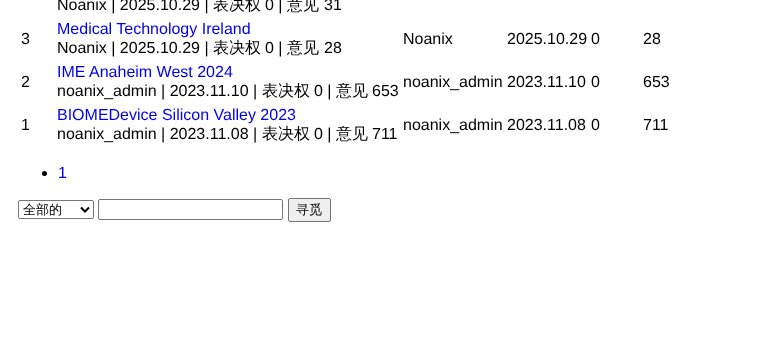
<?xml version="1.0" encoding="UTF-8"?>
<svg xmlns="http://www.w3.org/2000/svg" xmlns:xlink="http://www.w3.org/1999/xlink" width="763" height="348">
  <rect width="100%" height="100%" fill="#ffffff" />
  <circle cx="44.5" cy="173.5" r="2.5" fill="#000000" />
  <rect x="18.5" y="200.5" width="75" height="18" rx="1.5" fill="none" stroke="#767676" />
  <path d="M 81 207.5 l 4 4 l 4 -4" fill="none" stroke="#000000" stroke-width="2" />
  <rect x="98.5" y="199.5" width="184" height="20" rx="1.5" fill="none" stroke="#767676" />
  <rect x="288.5" y="198.5" width="42" height="23" rx="1.5" fill="#efefef" stroke="#767676" />
  <text x="57" y="10" style="font-family: Liberation Sans; font-size: 16px; fill: #000000">Noanix | 2025.10.29 |</text>
  <text x="213" y="10" style="font-family: WenQuanYi Zen Hei; font-size: 16px; font-weight: 500; fill: #000000">表决权</text>
  <text x="265" y="10" style="font-family: Liberation Sans; font-size: 16px; fill: #000000">0 |</text>
  <text x="287" y="10" style="font-family: WenQuanYi Zen Hei; font-size: 16px; font-weight: 500; fill: #000000">意见</text>
  <text x="324" y="10" style="font-family: Liberation Sans; font-size: 16px; fill: #000000">31</text>
  <text x="21" y="44" style="font-family: Liberation Sans; font-size: 16px; fill: #000000">3</text>
  <text x="57" y="34" style="font-family: Liberation Sans; font-size: 16px; fill: #0000ee">Medical Technology Ireland</text>
  <text x="57" y="53" style="font-family: Liberation Sans; font-size: 16px; fill: #000000">Noanix | 2025.10.29 |</text>
  <text x="213" y="53" style="font-family: WenQuanYi Zen Hei; font-size: 16px; font-weight: 500; fill: #000000">表决权</text>
  <text x="265" y="53" style="font-family: Liberation Sans; font-size: 16px; fill: #000000">0 |</text>
  <text x="287" y="53" style="font-family: WenQuanYi Zen Hei; font-size: 16px; font-weight: 500; fill: #000000">意见</text>
  <text x="324" y="53" style="font-family: Liberation Sans; font-size: 16px; fill: #000000">28</text>
  <text x="403" y="44" style="font-family: Liberation Sans; font-size: 16px; fill: #000000">Noanix</text>
  <text x="507" y="44" style="font-family: Liberation Sans; font-size: 16px; fill: #000000">2025.10.29</text>
  <text x="591" y="44" style="font-family: Liberation Sans; font-size: 16px; fill: #000000">0</text>
  <text x="643" y="44" style="font-family: Liberation Sans; font-size: 16px; fill: #000000">28</text>
  <text x="21" y="87" style="font-family: Liberation Sans; font-size: 16px; fill: #000000">2</text>
  <text x="57" y="77" style="font-family: Liberation Sans; font-size: 16px; fill: #0000ee">IME Anaheim West 2024</text>
  <text x="57" y="96" style="font-family: Liberation Sans; font-size: 16px; fill: #000000">noanix_admin | 2023.11.10 |</text>
  <text x="262" y="96" style="font-family: WenQuanYi Zen Hei; font-size: 16px; font-weight: 500; fill: #000000">表决权</text>
  <text x="314" y="96" style="font-family: Liberation Sans; font-size: 16px; fill: #000000">0 |</text>
  <text x="336" y="96" style="font-family: WenQuanYi Zen Hei; font-size: 16px; font-weight: 500; fill: #000000">意见</text>
  <text x="372" y="96" style="font-family: Liberation Sans; font-size: 16px; fill: #000000">653</text>
  <text x="403" y="87" style="font-family: Liberation Sans; font-size: 16px; fill: #000000">noanix_admin</text>
  <text x="507" y="87" style="font-family: Liberation Sans; font-size: 16px; fill: #000000">2023.11.10</text>
  <text x="591" y="87" style="font-family: Liberation Sans; font-size: 16px; fill: #000000">0</text>
  <text x="643" y="87" style="font-family: Liberation Sans; font-size: 16px; fill: #000000">653</text>
  <text x="21" y="130" style="font-family: Liberation Sans; font-size: 16px; fill: #000000">1</text>
  <text x="57" y="120" style="font-family: Liberation Sans; font-size: 16px; fill: #0000ee">BIOMEDevice Silicon Valley 2023</text>
  <text x="57" y="139" style="font-family: Liberation Sans; font-size: 16px; fill: #000000">noanix_admin | 2023.11.08 |</text>
  <text x="262" y="139" style="font-family: WenQuanYi Zen Hei; font-size: 16px; font-weight: 500; fill: #000000">表决权</text>
  <text x="314" y="139" style="font-family: Liberation Sans; font-size: 16px; fill: #000000">0 |</text>
  <text x="336" y="139" style="font-family: WenQuanYi Zen Hei; font-size: 16px; font-weight: 500; fill: #000000">意见</text>
  <text x="372" y="139" style="font-family: Liberation Sans; font-size: 16px; fill: #000000">711</text>
  <text x="403" y="130" style="font-family: Liberation Sans; font-size: 16px; fill: #000000">noanix_admin</text>
  <text x="507" y="130" style="font-family: Liberation Sans; font-size: 16px; fill: #000000">2023.11.08</text>
  <text x="591" y="130" style="font-family: Liberation Sans; font-size: 16px; fill: #000000">0</text>
  <text x="643" y="130" style="font-family: Liberation Sans; font-size: 16px; fill: #000000">711</text>
  <text x="58" y="178" style="font-family: Liberation Sans; font-size: 16px; fill: #0000ee">1</text>
  <text x="23" y="214" style="font-family: WenQuanYi Zen Hei; font-size: 13px; font-weight: 500; fill: #000000">全部的</text>
  <text x="296" y="214" style="font-family: WenQuanYi Zen Hei; font-size: 13px; font-weight: 500; fill: #000000">寻觅</text>
</svg>
